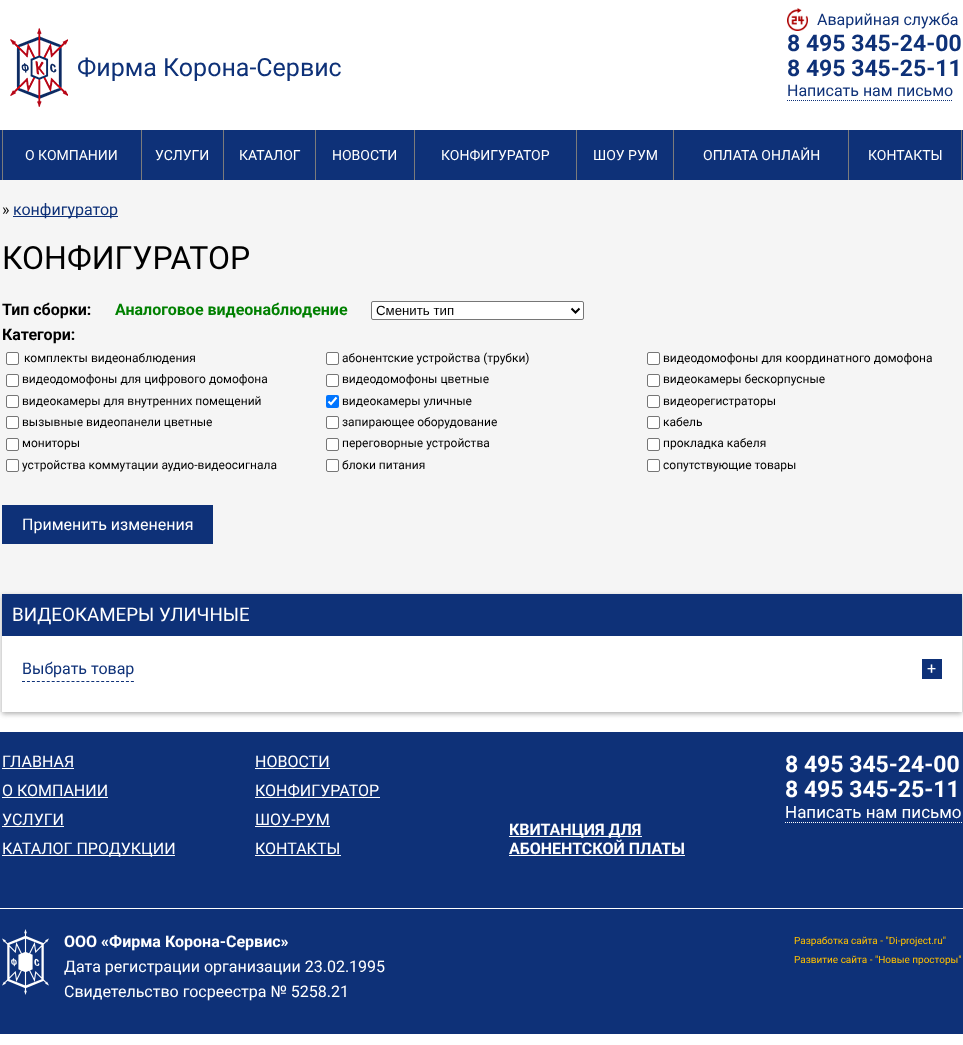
<?xml version="1.0" encoding="UTF-8"?>
<svg xmlns="http://www.w3.org/2000/svg" xmlns:xlink="http://www.w3.org/1999/xlink" width="963" height="1045">
  <rect width="100%" height="100%" fill="#ffffff" />
  <image x="10" y="28" width="58" height="79" xlink:href="image1.png" />
  <image x="787" y="8" width="21" height="23" xlink:href="image2.png" />
  <path d="M 787 100.5 h 166" fill="none" stroke="#0e3178" stroke-dasharray="1 1" />
  <rect y="130" width="963" height="50" fill="#0e3178" />
  <rect x="141" y="130" width="1" height="50" fill="#7b7b7b" />
  <rect x="2" y="130" width="1" height="50" fill="#7b7b7b" />
  <rect x="223" y="130" width="1" height="50" fill="#7b7b7b" />
  <rect x="315" y="130" width="1" height="50" fill="#7b7b7b" />
  <rect x="414" y="130" width="1" height="50" fill="#7b7b7b" />
  <rect x="576" y="130" width="1" height="50" fill="#7b7b7b" />
  <rect x="673" y="130" width="1" height="50" fill="#7b7b7b" />
  <rect x="848" y="130" width="1" height="50" fill="#7b7b7b" />
  <rect x="961" y="130" width="1" height="50" fill="#7b7b7b" />
  <rect y="180" width="963" height="532" fill="#f5f5f5" />
  <rect x="13" y="216" width="105" height="1" fill="#0e3178" />
  <rect x="371.5" y="301.5" width="212" height="18" rx="1.5" fill="#ffffff" stroke="#767676" />
  <path d="M 571.5 308.5 l 4 4 l 4 -4" fill="none" stroke="#000000" stroke-width="2" />
  <rect x="6.5" y="352.5" width="12" height="12" rx="1.5" fill="#ffffff" stroke="#767676" />
  <rect x="326.5" y="352.5" width="12" height="12" rx="1.5" fill="#ffffff" stroke="#767676" />
  <rect x="647.5" y="352.5" width="12" height="12" rx="1.5" fill="#ffffff" stroke="#767676" />
  <rect x="6.5" y="374.5" width="12" height="12" rx="1.5" fill="#ffffff" stroke="#767676" />
  <rect x="326.5" y="374.5" width="12" height="12" rx="1.5" fill="#ffffff" stroke="#767676" />
  <rect x="647.5" y="374.5" width="12" height="12" rx="1.5" fill="#ffffff" stroke="#767676" />
  <rect x="6.5" y="395.5" width="12" height="12" rx="1.5" fill="#ffffff" stroke="#767676" />
  <rect x="326" y="395" width="13" height="13" rx="2" fill="#0075ff" />
  <path d="M 328.5 401.5 l 2.5 2.5 l 5.5 -6.5" fill="none" stroke="#ffffff" stroke-width="2.1" />
  <rect x="647.5" y="395.5" width="12" height="12" rx="1.5" fill="#ffffff" stroke="#767676" />
  <rect x="6.5" y="416.5" width="12" height="12" rx="1.5" fill="#ffffff" stroke="#767676" />
  <rect x="326.5" y="416.5" width="12" height="12" rx="1.5" fill="#ffffff" stroke="#767676" />
  <rect x="647.5" y="416.5" width="12" height="12" rx="1.5" fill="#ffffff" stroke="#767676" />
  <rect x="6.5" y="438.5" width="12" height="12" rx="1.5" fill="#ffffff" stroke="#767676" />
  <rect x="326.5" y="438.5" width="12" height="12" rx="1.5" fill="#ffffff" stroke="#767676" />
  <rect x="647.5" y="438.5" width="12" height="12" rx="1.5" fill="#ffffff" stroke="#767676" />
  <rect x="6.5" y="459.5" width="12" height="12" rx="1.5" fill="#ffffff" stroke="#767676" />
  <rect x="326.5" y="459.5" width="12" height="12" rx="1.5" fill="#ffffff" stroke="#767676" />
  <rect x="647.5" y="459.5" width="12" height="12" rx="1.5" fill="#ffffff" stroke="#767676" />
  <rect x="2" y="505" width="211" height="39" fill="#0e3178" />
  <rect x="2" y="596" width="960" height="118" fill="#b1b1b1" filter="blur(2.5px)" />
  <rect x="2" y="636" width="960" height="76" fill="#ffffff" />
  <rect x="2" y="594" width="960" height="42" fill="#0e3178" />
  <path d="M 22 681.5 h 112" fill="none" stroke="#0e3178" stroke-dasharray="3 1.95" />
  <rect x="922" y="659" width="20" height="20" fill="#0e3178" />
  <rect y="732" width="963" height="176" fill="#0e3178" />
  <rect x="2" y="768" width="72" height="1" fill="#ffffff" />
  <rect x="2" y="797" width="106" height="1" fill="#ffffff" />
  <rect x="2" y="826" width="62" height="1" fill="#ffffff" />
  <rect x="2" y="855" width="173" height="1" fill="#ffffff" />
  <rect x="255" y="768" width="75" height="1" fill="#ffffff" />
  <rect x="255" y="797" width="125" height="1" fill="#ffffff" />
  <rect x="255" y="826" width="75" height="1" fill="#ffffff" />
  <rect x="255" y="855" width="86" height="1" fill="#ffffff" />
  <path d="M 785 822.5 h 177" fill="none" stroke="#ffffff" stroke-dasharray="1 1" />
  <rect x="509" y="836" width="133" height="1" fill="#ffffff" />
  <rect x="509" y="855" width="176" height="1" fill="#ffffff" />
  <rect y="909" width="963" height="125" fill="#0e3178" />
  <image x="2" y="929" width="47" height="66" xlink:href="image3.png" />
  <text x="77" y="76" style="font-family: Roboto; font-size: 25px; fill: #0e3178">Фирма Корона-Сервис</text>
  <text x="817" y="25" style="font-family: Roboto; font-size: 16px; fill: #0e3178">Аварийная служба</text>
  <text x="787" y="51" style="font-family: Roboto; font-size: 23px; font-weight: bold; fill: #0e3178">8 495 345-24-00</text>
  <text x="787" y="76" style="font-family: Roboto; font-size: 23px; font-weight: bold; fill: #0e3178">8 495 345-25-11</text>
  <text x="787" y="96" style="font-family: Roboto; font-size: 16px; fill: #0e3178">Написать нам письмо</text>
  <text x="25" y="160" style="font-family: Roboto; font-size: 14px; fill: #ffffff">О КОМПАНИИ</text>
  <text x="155" y="160" style="font-family: Roboto; font-size: 14px; fill: #ffffff">УСЛУГИ</text>
  <text x="239" y="160" style="font-family: Roboto; font-size: 14px; fill: #ffffff">КАТАЛОГ</text>
  <text x="332" y="160" style="font-family: Roboto; font-size: 14px; fill: #ffffff">НОВОСТИ</text>
  <text x="441" y="160" style="font-family: Roboto; font-size: 14px; fill: #ffffff">КОНФИГУРАТОР</text>
  <text x="593" y="160" style="font-family: Roboto; font-size: 14px; fill: #ffffff">ШОУ РУМ</text>
  <text x="703" y="160" style="font-family: Roboto; font-size: 14px; fill: #ffffff">ОПЛАТА ОНЛАЙН</text>
  <text x="868" y="160" style="font-family: Roboto; font-size: 14px; fill: #ffffff">КОНТАКТЫ</text>
  <text x="2" y="215" style="font-family: Roboto; font-size: 16px; fill: #000000">»</text>
  <text x="13" y="215" style="font-family: Roboto; font-size: 16px; fill: #0e3178">конфигуратор</text>
  <text x="2" y="269" style="font-family: Roboto; font-size: 32px; fill: #000000">КОНФИГУРАТОР</text>
  <text x="2" y="315" style="font-family: Roboto; font-size: 16px; font-weight: bold; fill: #000000">Тип сборки:</text>
  <text x="115" y="315" style="font-family: Roboto; font-size: 16px; font-weight: bold; fill: #008000">Аналоговое видеонаблюдение</text>
  <text x="376" y="315" style="font-family: Liberation Sans; font-size: 13.25px; fill: #000000">Сменить тип</text>
  <text x="2" y="340" style="font-family: Roboto; font-size: 16px; font-weight: bold; fill: #000000">Категори:</text>
  <text x="24" y="362" style="font-family: Roboto; font-size: 12px; fill: #000000">комплекты видеонаблюдения</text>
  <text x="342" y="362" style="font-family: Roboto; font-size: 12px; fill: #000000">абонентские устройства (трубки)</text>
  <text x="663" y="362" style="font-family: Roboto; font-size: 12px; fill: #000000">видеодомофоны для координатного домофона</text>
  <text x="22" y="383" style="font-family: Roboto; font-size: 12px; fill: #000000">видеодомофоны для цифрового домофона</text>
  <text x="342" y="383" style="font-family: Roboto; font-size: 12px; fill: #000000">видеодомофоны цветные</text>
  <text x="663" y="383" style="font-family: Roboto; font-size: 12px; fill: #000000">видеокамеры беcкорпусные</text>
  <text x="22" y="405" style="font-family: Roboto; font-size: 12px; fill: #000000">видеокамеры для внутренних помещений</text>
  <text x="342" y="405" style="font-family: Roboto; font-size: 12px; fill: #000000">видеокамеры уличные</text>
  <text x="663" y="405" style="font-family: Roboto; font-size: 12px; fill: #000000">видеорегистраторы</text>
  <text x="22" y="426" style="font-family: Roboto; font-size: 12px; fill: #000000">вызывные видеопанели цветные</text>
  <text x="342" y="426" style="font-family: Roboto; font-size: 12px; fill: #000000">запирающее оборудование</text>
  <text x="663" y="426" style="font-family: Roboto; font-size: 12px; fill: #000000">кабель</text>
  <text x="22" y="447" style="font-family: Roboto; font-size: 12px; fill: #000000">мониторы</text>
  <text x="342" y="447" style="font-family: Roboto; font-size: 12px; fill: #000000">переговорные устройства</text>
  <text x="663" y="447" style="font-family: Roboto; font-size: 12px; fill: #000000">прокладка кабеля</text>
  <text x="22" y="469" style="font-family: Roboto; font-size: 12px; fill: #000000">устройства коммутации аудио-видеосигнала</text>
  <text x="342" y="469" style="font-family: Roboto; font-size: 12px; fill: #000000">блоки питания</text>
  <text x="663" y="469" style="font-family: Roboto; font-size: 12px; fill: #000000">сопутствующие товары</text>
  <text x="22" y="530" style="font-family: Roboto; font-size: 16px; fill: #ffffff">Применить изменения</text>
  <text x="12" y="621" style="font-family: Roboto; font-size: 18.75px; fill: #ffffff">ВИДЕОКАМЕРЫ УЛИЧНЫЕ</text>
  <text x="22" y="674" style="font-family: Roboto; font-size: 16px; fill: #0e3178">Выбрать товар</text>
  <text x="927" y="674" style="font-family: Roboto; font-size: 16px; fill: #ffffff">+</text>
  <text x="2" y="767" style="font-family: Roboto; font-size: 16px; fill: #ffffff">ГЛАВНАЯ</text>
  <text x="2" y="796" style="font-family: Roboto; font-size: 16px; fill: #ffffff">О КОМПАНИИ</text>
  <text x="2" y="825" style="font-family: Roboto; font-size: 16px; fill: #ffffff">УСЛУГИ</text>
  <text x="2" y="854" style="font-family: Roboto; font-size: 16px; fill: #ffffff">КАТАЛОГ ПРОДУКЦИИ</text>
  <text x="255" y="767" style="font-family: Roboto; font-size: 16px; fill: #ffffff">НОВОСТИ</text>
  <text x="255" y="796" style="font-family: Roboto; font-size: 16px; fill: #ffffff">КОНФИГУРАТОР</text>
  <text x="255" y="825" style="font-family: Roboto; font-size: 16px; fill: #ffffff">ШОУ-РУМ</text>
  <text x="255" y="854" style="font-family: Roboto; font-size: 16px; fill: #ffffff">КОНТАКТЫ</text>
  <text x="785" y="772" style="font-family: Roboto; font-size: 23px; font-weight: bold; fill: #ffffff">8 495 345-24-00</text>
  <text x="785" y="797" style="font-family: Roboto; font-size: 23px; font-weight: bold; fill: #ffffff">8 495 345-25-11</text>
  <text x="785" y="818" style="font-family: Roboto; font-size: 17px; fill: #ffffff">Написать нам письмо</text>
  <text x="509" y="835" style="font-family: Roboto; font-size: 16px; font-weight: bold; fill: #ffffff">КВИТАНЦИЯ ДЛЯ</text>
  <text x="509" y="854" style="font-family: Roboto; font-size: 16px; font-weight: bold; fill: #ffffff">АБОНЕНТСКОЙ ПЛАТЫ</text>
  <text x="64" y="947" style="font-family: Roboto; font-size: 16px; font-weight: bold; fill: #ffffff">ООО «Фирма Корона-Сервис»</text>
  <text x="64" y="972" style="font-family: Roboto; font-size: 16px; fill: #ffffff">Дата регистрации организации 23.02.1995</text>
  <text x="64" y="997" style="font-family: Roboto; font-size: 16px; fill: #ffffff">Свидетельство госреестра № 5258.21</text>
  <text x="794" y="944" style="font-family: Roboto; font-size: 10px; fill: #ffc000">Разработка сайта - "Di-project.ru"</text>
  <text x="794" y="963" style="font-family: Roboto; font-size: 10px; fill: #ffc000">Развитие сайта - "Новые просторы"</text>
</svg>
